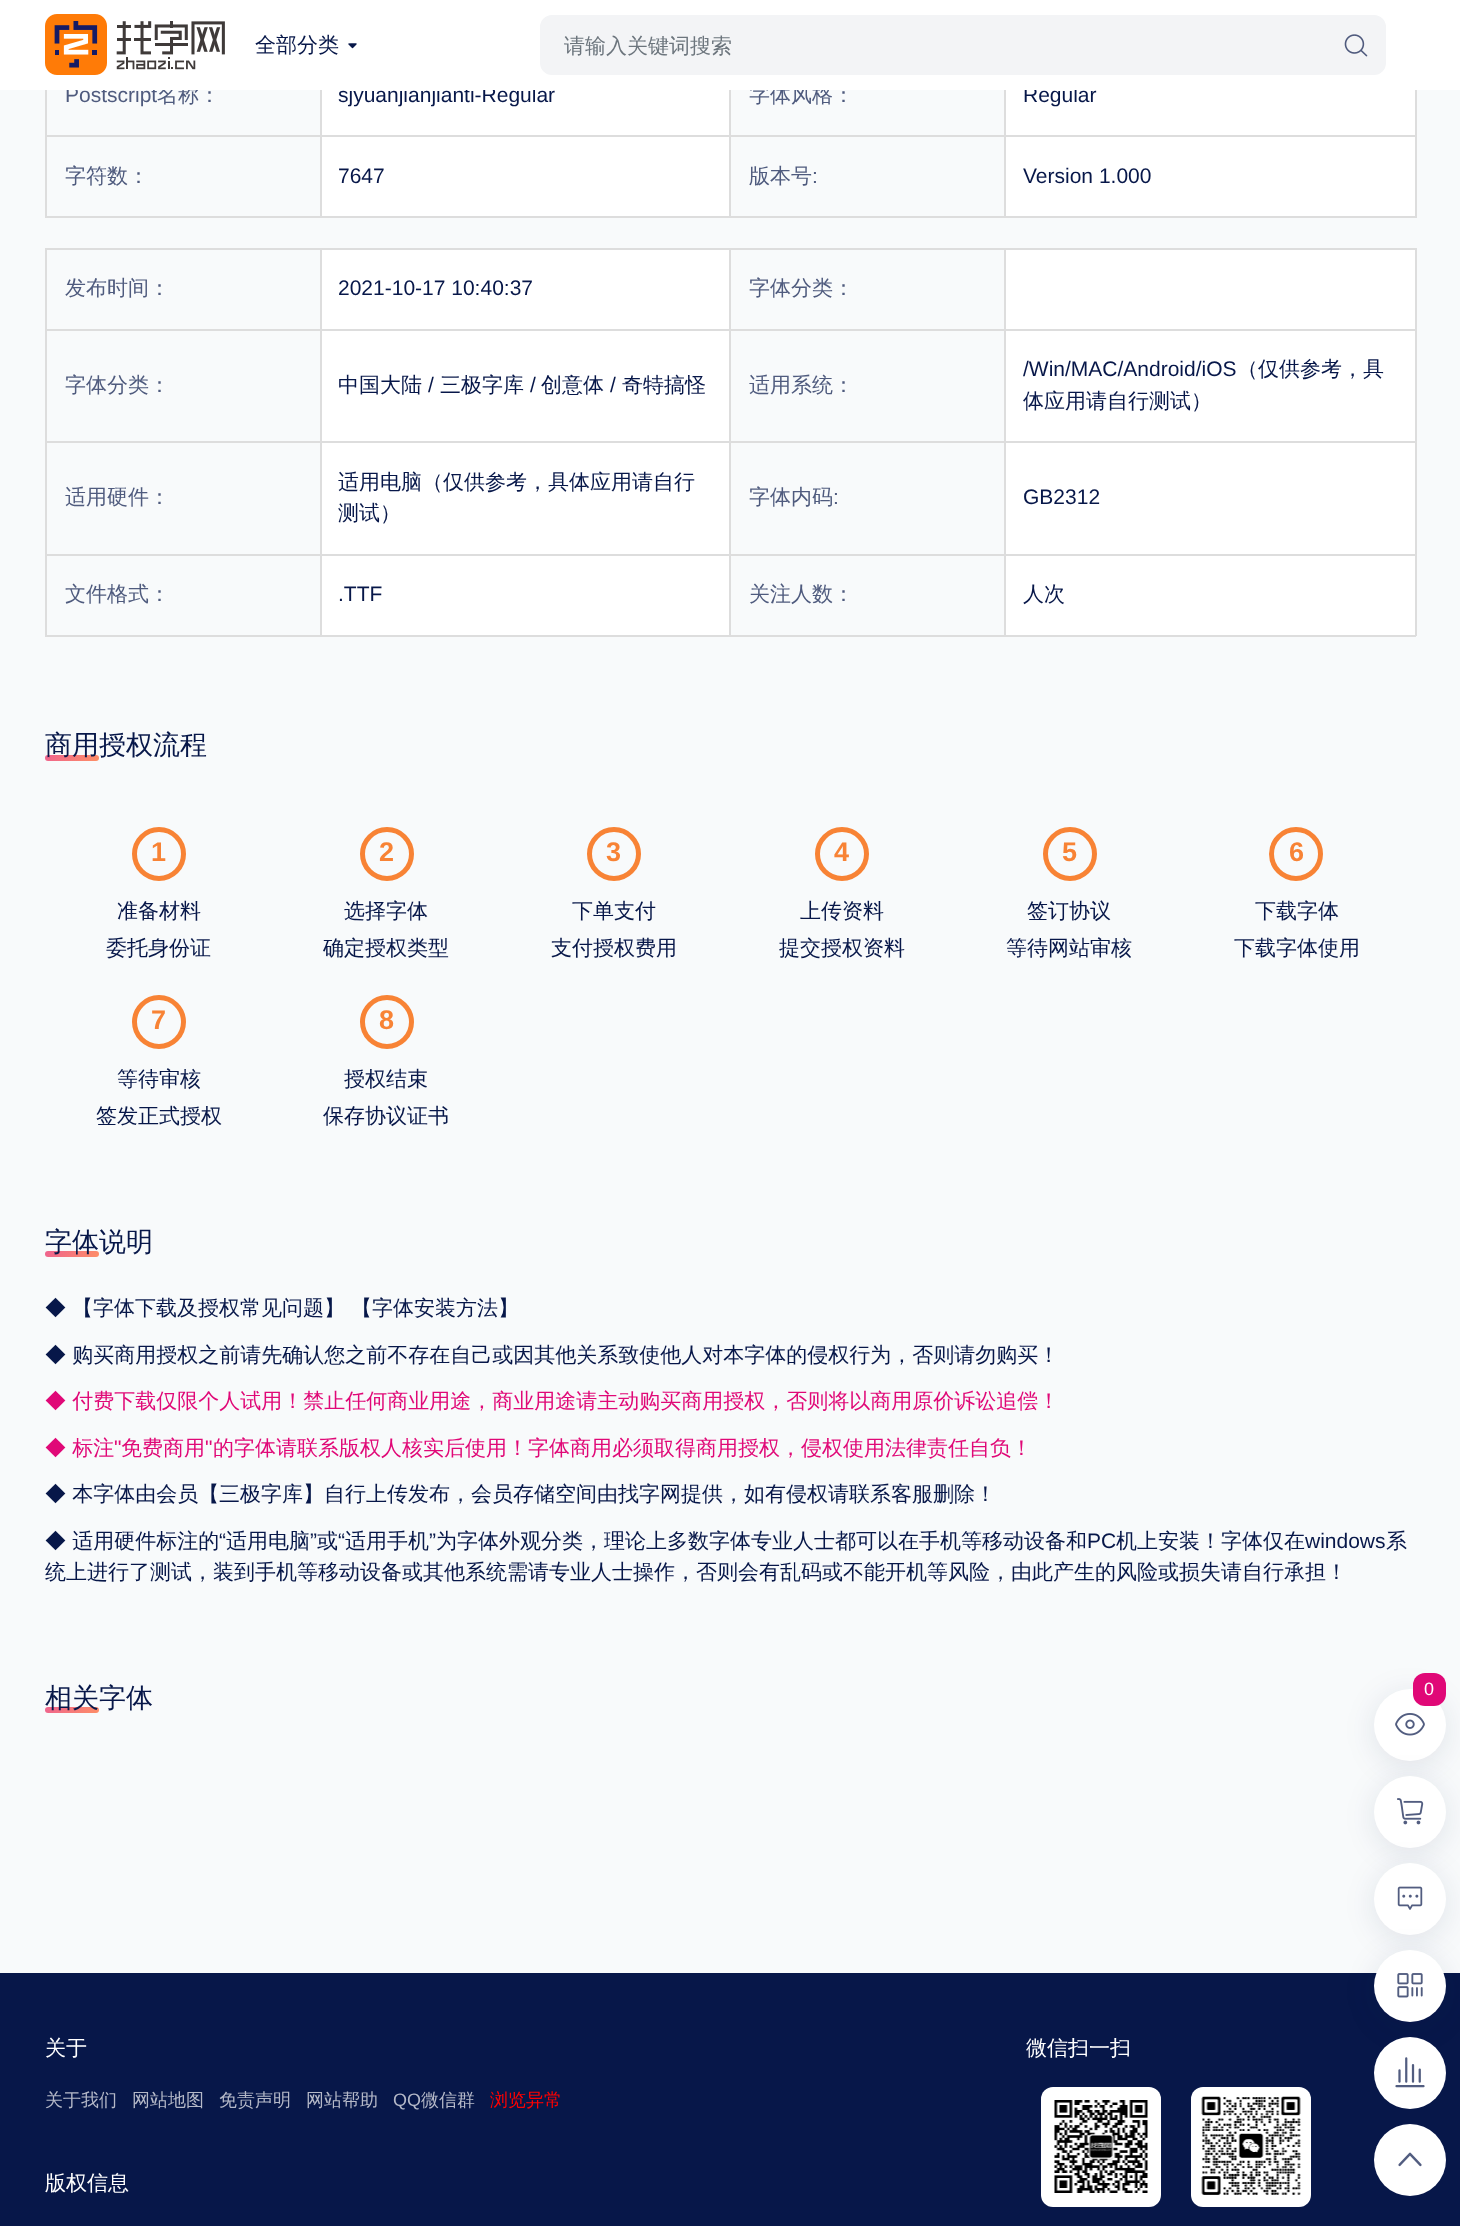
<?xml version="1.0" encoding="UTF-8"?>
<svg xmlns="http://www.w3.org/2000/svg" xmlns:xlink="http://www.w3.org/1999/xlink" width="1460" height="2226">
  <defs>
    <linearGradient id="g1" gradientUnits="userSpaceOnUse" x1="89" y1="772" x2="55" y2="743"><stop offset="0" stop-color="#fe8f66" /><stop offset="1" stop-color="#ee628f" /></linearGradient>
    <linearGradient id="g2" gradientUnits="userSpaceOnUse" x1="89" y1="1269" x2="55" y2="1239"><stop offset="0" stop-color="#fe8f66" /><stop offset="1" stop-color="#ee628f" /></linearGradient>
    <linearGradient id="g3" gradientUnits="userSpaceOnUse" x1="89" y1="1725" x2="55" y2="1695"><stop offset="0" stop-color="#fe8f66" /><stop offset="1" stop-color="#ee628f" /></linearGradient>
  </defs>
  <rect width="100%" height="100%" fill="#f8fafb" />
  <rect x="322" y="90" width="407" height="45" fill="#ffffff" />
  <rect x="1004" y="135" width="412" height="2" fill="#dddddd" />
  <rect x="1415" y="90" width="2" height="128" fill="#dddddd" />
  <rect x="1004" y="216" width="412" height="2" fill="#dddddd" />
  <rect x="1004" y="135" width="2" height="83" fill="#dddddd" />
  <rect x="729" y="135" width="276" height="2" fill="#dddddd" />
  <rect x="729" y="216" width="276" height="2" fill="#dddddd" />
  <rect x="729" y="135" width="2" height="83" fill="#dddddd" />
  <rect x="320" y="135" width="411" height="2" fill="#dddddd" />
  <rect x="320" y="216" width="411" height="2" fill="#dddddd" />
  <rect x="320" y="135" width="2" height="83" fill="#dddddd" />
  <rect x="45" y="135" width="276" height="2" fill="#dddddd" />
  <rect x="320" y="90" width="2" height="47" fill="#dddddd" />
  <rect x="729" y="90" width="2" height="47" fill="#dddddd" />
  <rect x="1006" y="90" width="409" height="45" fill="#ffffff" />
  <rect x="1004" y="90" width="2" height="47" fill="#dddddd" />
  <rect x="45" y="216" width="276" height="2" fill="#dddddd" />
  <rect x="45" y="90" width="2" height="128" fill="#dddddd" />
  <rect x="322" y="137" width="407" height="79" fill="#ffffff" />
  <rect x="1006" y="137" width="409" height="79" fill="#ffffff" />
  <rect x="1004" y="248" width="412" height="2" fill="#dddddd" />
  <rect x="1004" y="329" width="412" height="2" fill="#dddddd" />
  <rect x="1004" y="441" width="412" height="2" fill="#dddddd" />
  <rect x="1004" y="554" width="412" height="2" fill="#dddddd" />
  <rect x="1415" y="554" width="2" height="82" fill="#dddddd" />
  <rect x="1004" y="635" width="412" height="2" fill="#dddddd" />
  <rect x="1004" y="554" width="2" height="82" fill="#dddddd" />
  <rect x="729" y="554" width="276" height="2" fill="#dddddd" />
  <rect x="1004" y="441" width="2" height="114" fill="#dddddd" />
  <rect x="729" y="441" width="276" height="2" fill="#dddddd" />
  <rect x="1004" y="329" width="2" height="114" fill="#dddddd" />
  <rect x="729" y="329" width="276" height="2" fill="#dddddd" />
  <rect x="1004" y="248" width="2" height="82" fill="#dddddd" />
  <rect x="729" y="248" width="276" height="2" fill="#dddddd" />
  <rect x="729" y="635" width="276" height="2" fill="#dddddd" />
  <rect x="729" y="554" width="2" height="82" fill="#dddddd" />
  <rect x="320" y="554" width="411" height="2" fill="#dddddd" />
  <rect x="729" y="441" width="2" height="114" fill="#dddddd" />
  <rect x="320" y="441" width="411" height="2" fill="#dddddd" />
  <rect x="729" y="329" width="2" height="114" fill="#dddddd" />
  <rect x="320" y="329" width="411" height="2" fill="#dddddd" />
  <rect x="729" y="248" width="2" height="82" fill="#dddddd" />
  <rect x="320" y="248" width="411" height="2" fill="#dddddd" />
  <rect x="320" y="635" width="411" height="2" fill="#dddddd" />
  <rect x="320" y="554" width="2" height="82" fill="#dddddd" />
  <rect x="45" y="554" width="276" height="2" fill="#dddddd" />
  <rect x="320" y="441" width="2" height="114" fill="#dddddd" />
  <rect x="45" y="441" width="276" height="2" fill="#dddddd" />
  <rect x="320" y="329" width="2" height="114" fill="#dddddd" />
  <rect x="45" y="329" width="276" height="2" fill="#dddddd" />
  <rect x="320" y="248" width="2" height="82" fill="#dddddd" />
  <rect x="45" y="248" width="276" height="2" fill="#dddddd" />
  <rect x="45" y="635" width="276" height="2" fill="#dddddd" />
  <rect x="45" y="554" width="2" height="82" fill="#dddddd" />
  <rect x="45" y="441" width="2" height="114" fill="#dddddd" />
  <rect x="45" y="329" width="2" height="114" fill="#dddddd" />
  <rect x="45" y="248" width="2" height="82" fill="#dddddd" />
  <rect x="322" y="250" width="407" height="79" fill="#ffffff" />
  <rect x="1006" y="250" width="409" height="79" fill="#ffffff" />
  <rect x="1415" y="441" width="2" height="114" fill="#dddddd" />
  <rect x="1415" y="329" width="2" height="114" fill="#dddddd" />
  <rect x="1415" y="248" width="2" height="82" fill="#dddddd" />
  <rect x="322" y="331" width="407" height="110" fill="#ffffff" />
  <rect x="1006" y="331" width="409" height="110" fill="#ffffff" />
  <rect x="322" y="443" width="407" height="111" fill="#ffffff" />
  <rect x="1006" y="443" width="409" height="111" fill="#ffffff" />
  <rect x="322" y="556" width="407" height="79" fill="#ffffff" />
  <rect x="1006" y="556" width="409" height="79" fill="#ffffff" />
  <rect x="45" y="755" width="54" height="6" rx="3" fill="url(#g1)" />
  <circle cx="159" cy="854" r="24.5" fill="none" stroke="#f88335" stroke-width="5" />
  <circle cx="387" cy="854" r="24.5" fill="none" stroke="#f88335" stroke-width="5" />
  <circle cx="614" cy="854" r="24.5" fill="none" stroke="#f88335" stroke-width="5" />
  <circle cx="842" cy="854" r="24.5" fill="none" stroke="#f88335" stroke-width="5" />
  <circle cx="1070" cy="854" r="24.5" fill="none" stroke="#f88335" stroke-width="5" />
  <circle cx="1296" cy="854" r="24.5" fill="none" stroke="#f88335" stroke-width="5" />
  <circle cx="159" cy="1022" r="24.5" fill="none" stroke="#f88335" stroke-width="5" />
  <circle cx="387" cy="1022" r="24.5" fill="none" stroke="#f88335" stroke-width="5" />
  <rect x="45" y="1251" width="54" height="6" rx="3" fill="url(#g2)" />
  <rect x="45" y="1707" width="54" height="6" rx="3" fill="url(#g3)" />
  <rect x="1374" y="1694" width="72" height="72" rx="36" fill="#071749" fill-opacity="0.1" filter="blur(15px)" />
  <circle cx="1410" cy="1725" r="36" fill="#ffffff" />
  <rect x="1413" y="1673" width="33" height="33" rx="12" fill="#e00877" />
  <image x="1395" y="1713" width="30" height="23" xlink:href="image4.png" />
  <rect x="1374" y="1781" width="72" height="72" rx="36" fill="#071749" fill-opacity="0.1" filter="blur(15px)" />
  <circle cx="1410" cy="1812" r="36" fill="#ffffff" />
  <image x="1397" y="1798" width="27" height="27" xlink:href="image5.png" />
  <rect y="1973" width="1460" height="253" fill="#071749" />
  <rect x="1374" y="1868" width="72" height="72" rx="36" fill="#071749" fill-opacity="0.1" filter="blur(15px)" />
  <circle cx="1410" cy="1899" r="36" fill="#ffffff" />
  <image x="1397" y="1886" width="26" height="24" xlink:href="image6.png" />
  <rect x="1374" y="1955" width="72" height="72" rx="36" fill="#071749" fill-opacity="0.1" filter="blur(15px)" />
  <circle cx="1410" cy="1986" r="36" fill="#ffffff" />
  <image x="1397" y="1973" width="26" height="25" xlink:href="image7.png" />
  <circle cx="1410" cy="2073" r="36" fill="#ffffff" />
  <image x="1395" y="2057" width="30" height="31" xlink:href="image8.png" />
  <circle cx="1410" cy="2160" r="36" fill="#ffffff" />
  <image x="1398" y="2152" width="24" height="15" xlink:href="image9.png" />
  <rect x="1041" y="2087" width="120" height="120" rx="12" fill="#ffffff" />
  <image x="1054" y="2100" width="94" height="93" xlink:href="image10.png" />
  <rect x="1191" y="2087" width="120" height="120" rx="12" fill="#ffffff" />
  <image x="1201" y="2096" width="100" height="99" xlink:href="image11.png" />
  <text x="65" y="102" style="font-family: Liberation Sans; font-size: 21px; fill: #4f5b7e">Postscript</text>
  <text x="157" y="102" style="font-family: WenQuanYi Zen Hei; font-size: 21px; font-weight: 500; fill: #4f5b7e">名称：</text>
  <text x="338" y="102" style="font-family: Liberation Sans; font-size: 21px; fill: #071749">sjyuanjianjianti-Regular</text>
  <text x="749" y="102" style="font-family: WenQuanYi Zen Hei; font-size: 21px; font-weight: 500; fill: #4f5b7e">字体风格：</text>
  <text x="1023" y="102" style="font-family: Liberation Sans; font-size: 21px; fill: #071749">Regular</text>
  <rect width="1460" height="90" fill="#ffffff" />
  <rect x="541" y="16" width="844" height="58" rx="11" fill="#f3f4f6" stroke="#f3f4f6" stroke-width="2" />
  <image x="1344" y="34" width="24" height="23" xlink:href="image3.png" />
  <text x="564" y="53" style="font-family: WenQuanYi Zen Hei; font-size: 21px; font-weight: 500; fill: #6c757d">请输入关键词搜索</text>
  <image x="45" y="14" width="180" height="61" xlink:href="image1.png" />
  <image x="348" y="43" width="9" height="6" xlink:href="image2.png" />
  <text x="255" y="52" style="font-family: WenQuanYi Zen Hei; font-size: 21px; font-weight: 500; fill: #071749">全部分类</text>
  <text x="65" y="183" style="font-family: WenQuanYi Zen Hei; font-size: 21px; font-weight: 500; fill: #4f5b7e">字符数：</text>
  <text x="338" y="183" style="font-family: Liberation Sans; font-size: 21px; fill: #071749">7647</text>
  <text x="749" y="183" style="font-family: WenQuanYi Zen Hei; font-size: 21px; font-weight: 500; fill: #4f5b7e">版本号</text>
  <text x="812" y="183" style="font-family: Liberation Sans; font-size: 21px; fill: #4f5b7e">:</text>
  <text x="1023" y="183" style="font-family: Liberation Sans; font-size: 21px; fill: #071749">Version 1.000</text>
  <text x="65" y="295" style="font-family: WenQuanYi Zen Hei; font-size: 21px; font-weight: 500; fill: #4f5b7e">发布时间：</text>
  <text x="338" y="295" style="font-family: Liberation Sans; font-size: 21px; fill: #071749">2021-10-17 10:40:37</text>
  <text x="749" y="295" style="font-family: WenQuanYi Zen Hei; font-size: 21px; font-weight: 500; fill: #4f5b7e">字体分类：</text>
  <text x="65" y="392" style="font-family: WenQuanYi Zen Hei; font-size: 21px; font-weight: 500; fill: #4f5b7e">字体分类：</text>
  <text x="338" y="392" style="font-family: WenQuanYi Zen Hei; font-size: 21px; font-weight: 500; fill: #071749">中国大陆</text>
  <text x="428" y="392" style="font-family: Liberation Sans; font-size: 21px; fill: #071749">/</text>
  <text x="440" y="392" style="font-family: WenQuanYi Zen Hei; font-size: 21px; font-weight: 500; fill: #071749">三极字库</text>
  <text x="530" y="392" style="font-family: Liberation Sans; font-size: 21px; fill: #071749">/</text>
  <text x="541" y="392" style="font-family: WenQuanYi Zen Hei; font-size: 21px; font-weight: 500; fill: #071749">创意体</text>
  <text x="610" y="392" style="font-family: Liberation Sans; font-size: 21px; fill: #071749">/</text>
  <text x="622" y="392" style="font-family: WenQuanYi Zen Hei; font-size: 21px; font-weight: 500; fill: #071749">奇特搞怪</text>
  <text x="749" y="392" style="font-family: WenQuanYi Zen Hei; font-size: 21px; font-weight: 500; fill: #4f5b7e">适用系统：</text>
  <text x="1023" y="376" style="font-family: Liberation Sans; font-size: 21px; fill: #071749">/Win/MAC/Android/iOS</text>
  <text x="1237" y="376" style="font-family: WenQuanYi Zen Hei; font-size: 21px; font-weight: 500; fill: #071749">（仅供参考，具</text>
  <text x="1023" y="408" style="font-family: WenQuanYi Zen Hei; font-size: 21px; font-weight: 500; fill: #071749">体应用请自行测试）</text>
  <text x="65" y="504" style="font-family: WenQuanYi Zen Hei; font-size: 21px; font-weight: 500; fill: #4f5b7e">适用硬件：</text>
  <text x="338" y="489" style="font-family: WenQuanYi Zen Hei; font-size: 21px; font-weight: 500; fill: #071749">适用电脑（仅供参考，具体应用请自行</text>
  <text x="338" y="520" style="font-family: WenQuanYi Zen Hei; font-size: 21px; font-weight: 500; fill: #071749">测试）</text>
  <text x="749" y="504" style="font-family: WenQuanYi Zen Hei; font-size: 21px; font-weight: 500; fill: #4f5b7e">字体内码</text>
  <text x="833" y="504" style="font-family: Liberation Sans; font-size: 21px; fill: #4f5b7e">:</text>
  <text x="1023" y="504" style="font-family: Liberation Sans; font-size: 21px; fill: #071749">GB2312</text>
  <text x="65" y="601" style="font-family: WenQuanYi Zen Hei; font-size: 21px; font-weight: 500; fill: #4f5b7e">文件格式：</text>
  <text x="338" y="601" style="font-family: Liberation Sans; font-size: 21px; fill: #071749">.TTF</text>
  <text x="749" y="601" style="font-family: WenQuanYi Zen Hei; font-size: 21px; font-weight: 500; fill: #4f5b7e">关注人数：</text>
  <text x="1023" y="601" style="font-family: WenQuanYi Zen Hei; font-size: 21px; font-weight: 500; fill: #071749">人次</text>
  <text x="45" y="754" style="font-family: WenQuanYi Zen Hei; font-size: 27px; font-weight: 500; fill: #071749">商用授权流程</text>
  <text x="151" y="861" style="font-family: Liberation Sans; font-size: 27px; font-weight: bold; fill: #f88335">1</text>
  <text x="117" y="918" style="font-family: WenQuanYi Zen Hei; font-size: 21px; font-weight: 500; fill: #071749">准备材料</text>
  <text x="106" y="955" style="font-family: WenQuanYi Zen Hei; font-size: 21px; font-weight: 500; fill: #071749">委托身份证</text>
  <text x="379" y="861" style="font-family: Liberation Sans; font-size: 27px; font-weight: bold; fill: #f88335">2</text>
  <text x="344" y="918" style="font-family: WenQuanYi Zen Hei; font-size: 21px; font-weight: 500; fill: #071749">选择字体</text>
  <text x="323" y="955" style="font-family: WenQuanYi Zen Hei; font-size: 21px; font-weight: 500; fill: #071749">确定授权类型</text>
  <text x="606" y="861" style="font-family: Liberation Sans; font-size: 27px; font-weight: bold; fill: #f88335">3</text>
  <text x="572" y="918" style="font-family: WenQuanYi Zen Hei; font-size: 21px; font-weight: 500; fill: #071749">下单支付</text>
  <text x="551" y="955" style="font-family: WenQuanYi Zen Hei; font-size: 21px; font-weight: 500; fill: #071749">支付授权费用</text>
  <text x="834" y="861" style="font-family: Liberation Sans; font-size: 27px; font-weight: bold; fill: #f88335">4</text>
  <text x="800" y="918" style="font-family: WenQuanYi Zen Hei; font-size: 21px; font-weight: 500; fill: #071749">上传资料</text>
  <text x="779" y="955" style="font-family: WenQuanYi Zen Hei; font-size: 21px; font-weight: 500; fill: #071749">提交授权资料</text>
  <text x="1062" y="861" style="font-family: Liberation Sans; font-size: 27px; font-weight: bold; fill: #f88335">5</text>
  <text x="1027" y="918" style="font-family: WenQuanYi Zen Hei; font-size: 21px; font-weight: 500; fill: #071749">签订协议</text>
  <text x="1006" y="955" style="font-family: WenQuanYi Zen Hei; font-size: 21px; font-weight: 500; fill: #071749">等待网站审核</text>
  <text x="1289" y="861" style="font-family: Liberation Sans; font-size: 27px; font-weight: bold; fill: #f88335">6</text>
  <text x="1255" y="918" style="font-family: WenQuanYi Zen Hei; font-size: 21px; font-weight: 500; fill: #071749">下载字体</text>
  <text x="1234" y="955" style="font-family: WenQuanYi Zen Hei; font-size: 21px; font-weight: 500; fill: #071749">下载字体使用</text>
  <text x="151" y="1029" style="font-family: Liberation Sans; font-size: 27px; font-weight: bold; fill: #f88335">7</text>
  <text x="117" y="1086" style="font-family: WenQuanYi Zen Hei; font-size: 21px; font-weight: 500; fill: #071749">等待审核</text>
  <text x="96" y="1123" style="font-family: WenQuanYi Zen Hei; font-size: 21px; font-weight: 500; fill: #071749">签发正式授权</text>
  <text x="379" y="1029" style="font-family: Liberation Sans; font-size: 27px; font-weight: bold; fill: #f88335">8</text>
  <text x="344" y="1086" style="font-family: WenQuanYi Zen Hei; font-size: 21px; font-weight: 500; fill: #071749">授权结束</text>
  <text x="323" y="1123" style="font-family: WenQuanYi Zen Hei; font-size: 21px; font-weight: 500; fill: #071749">保存协议证书</text>
  <text x="45" y="1251" style="font-family: WenQuanYi Zen Hei; font-size: 27px; font-weight: 500; fill: #071749">字体说明</text>
  <text x="45" y="1315" style="font-family: WenQuanYi Zen Hei; font-size: 21px; font-weight: 500; fill: #071749">◆</text>
  <text x="72" y="1315" style="font-family: WenQuanYi Zen Hei; font-size: 21px; font-weight: 500; fill: #071749">【字体下载及授权常见问题】</text>
  <text x="351" y="1315" style="font-family: WenQuanYi Zen Hei; font-size: 21px; font-weight: 500; fill: #071749">【字体安装方法】</text>
  <text x="45" y="1362" style="font-family: WenQuanYi Zen Hei; font-size: 21px; font-weight: 500; fill: #071749">◆ 购买商用授权之前请先确认您之前不存在自己或因其他关系致使他人对本字体的侵权行为，否则请勿购买！</text>
  <text x="45" y="1408" style="font-family: WenQuanYi Zen Hei; font-size: 21px; font-weight: 500; fill: #e00877">◆ 付费下载仅限个人试用！禁止任何商业用途，商业用途请主动购买商用授权，否则将以商用原价诉讼追偿！</text>
  <text x="45" y="1455" style="font-family: WenQuanYi Zen Hei; font-size: 21px; font-weight: 500; fill: #e00877">◆ 标注</text>
  <text x="114" y="1455" style="font-family: Liberation Sans; font-size: 21px; fill: #e00877">"</text>
  <text x="121" y="1455" style="font-family: WenQuanYi Zen Hei; font-size: 21px; font-weight: 500; fill: #e00877">免费商用</text>
  <text x="205" y="1455" style="font-family: Liberation Sans; font-size: 21px; fill: #e00877">"</text>
  <text x="213" y="1455" style="font-family: WenQuanYi Zen Hei; font-size: 21px; font-weight: 500; fill: #e00877">的字体请联系版权人核实后使用！字体商用必须取得商用授权，侵权使用法律责任自负！</text>
  <text x="45" y="1501" style="font-family: WenQuanYi Zen Hei; font-size: 21px; font-weight: 500; fill: #071749">◆ 本字体由会员【</text>
  <text x="219" y="1501" style="font-family: WenQuanYi Zen Hei; font-size: 21px; font-weight: 500; fill: #071749">三极字库】自行上传发布，会员存储空间由找字网提供，如有侵权请联系客服删除！</text>
  <text x="45" y="1548" style="font-family: WenQuanYi Zen Hei; font-size: 21px; font-weight: 500; fill: #071749">◆ 适用硬件标注的</text>
  <text x="219" y="1548" style="font-family: Liberation Sans; font-size: 21px; fill: #071749">“</text>
  <text x="226" y="1548" style="font-family: WenQuanYi Zen Hei; font-size: 21px; font-weight: 500; fill: #071749">适用电脑</text>
  <text x="310" y="1548" style="font-family: Liberation Sans; font-size: 21px; fill: #071749">”</text>
  <text x="317" y="1548" style="font-family: WenQuanYi Zen Hei; font-size: 21px; font-weight: 500; fill: #071749">或</text>
  <text x="338" y="1548" style="font-family: Liberation Sans; font-size: 21px; fill: #071749">“</text>
  <text x="345" y="1548" style="font-family: WenQuanYi Zen Hei; font-size: 21px; font-weight: 500; fill: #071749">适用手机</text>
  <text x="429" y="1548" style="font-family: Liberation Sans; font-size: 21px; fill: #071749">”</text>
  <text x="436" y="1548" style="font-family: WenQuanYi Zen Hei; font-size: 21px; font-weight: 500; fill: #071749">为字体外观分类，理论上多数字体专业人士都可以在手机等移动设备和</text>
  <text x="1087" y="1548" style="font-family: Liberation Sans; font-size: 21px; fill: #071749">PC</text>
  <text x="1116" y="1548" style="font-family: WenQuanYi Zen Hei; font-size: 21px; font-weight: 500; fill: #071749">机上安装！字体仅在</text>
  <text x="1305" y="1548" style="font-family: Liberation Sans; font-size: 21px; fill: #071749">windows</text>
  <text x="1386" y="1548" style="font-family: WenQuanYi Zen Hei; font-size: 21px; font-weight: 500; fill: #071749">系</text>
  <text x="45" y="1579" style="font-family: WenQuanYi Zen Hei; font-size: 21px; font-weight: 500; fill: #071749">统上进行了测试，装到手机等移动设备或其他系统需请专业人士操作，否则会有乱码或不能开机等风险，由此产生的风险或损失请自行承担！</text>
  <text x="45" y="1707" style="font-family: WenQuanYi Zen Hei; font-size: 27px; font-weight: 500; fill: #071749">相关字体</text>
  <text x="1424" y="1695" style="font-family: Liberation Sans; font-size: 18px; fill: #ffffff">0</text>
  <text x="45" y="2055" style="font-family: WenQuanYi Zen Hei; font-size: 21px; font-weight: 500; fill: #ffffff">关于</text>
  <text x="45" y="2106" style="font-family: WenQuanYi Zen Hei; font-size: 18px; font-weight: 500; fill: #b5b9c8">关于我们</text>
  <text x="132" y="2106" style="font-family: WenQuanYi Zen Hei; font-size: 18px; font-weight: 500; fill: #b5b9c8">网站地图</text>
  <text x="219" y="2106" style="font-family: WenQuanYi Zen Hei; font-size: 18px; font-weight: 500; fill: #b5b9c8">免责声明</text>
  <text x="306" y="2106" style="font-family: WenQuanYi Zen Hei; font-size: 18px; font-weight: 500; fill: #b5b9c8">网站帮助</text>
  <text x="393" y="2106" style="font-family: Liberation Sans; font-size: 18px; fill: #b5b9c8">QQ</text>
  <text x="421" y="2106" style="font-family: WenQuanYi Zen Hei; font-size: 18px; font-weight: 500; fill: #b5b9c8">微信群</text>
  <text x="490" y="2106" style="font-family: WenQuanYi Zen Hei; font-size: 18px; font-weight: 500; fill: #ff0000">浏览异常</text>
  <text x="45" y="2190" style="font-family: WenQuanYi Zen Hei; font-size: 21px; font-weight: 500; fill: #ffffff">版权信息</text>
  <text x="1026" y="2055" style="font-family: WenQuanYi Zen Hei; font-size: 21px; font-weight: 500; fill: #ffffff">微信扫一扫</text>
</svg>
